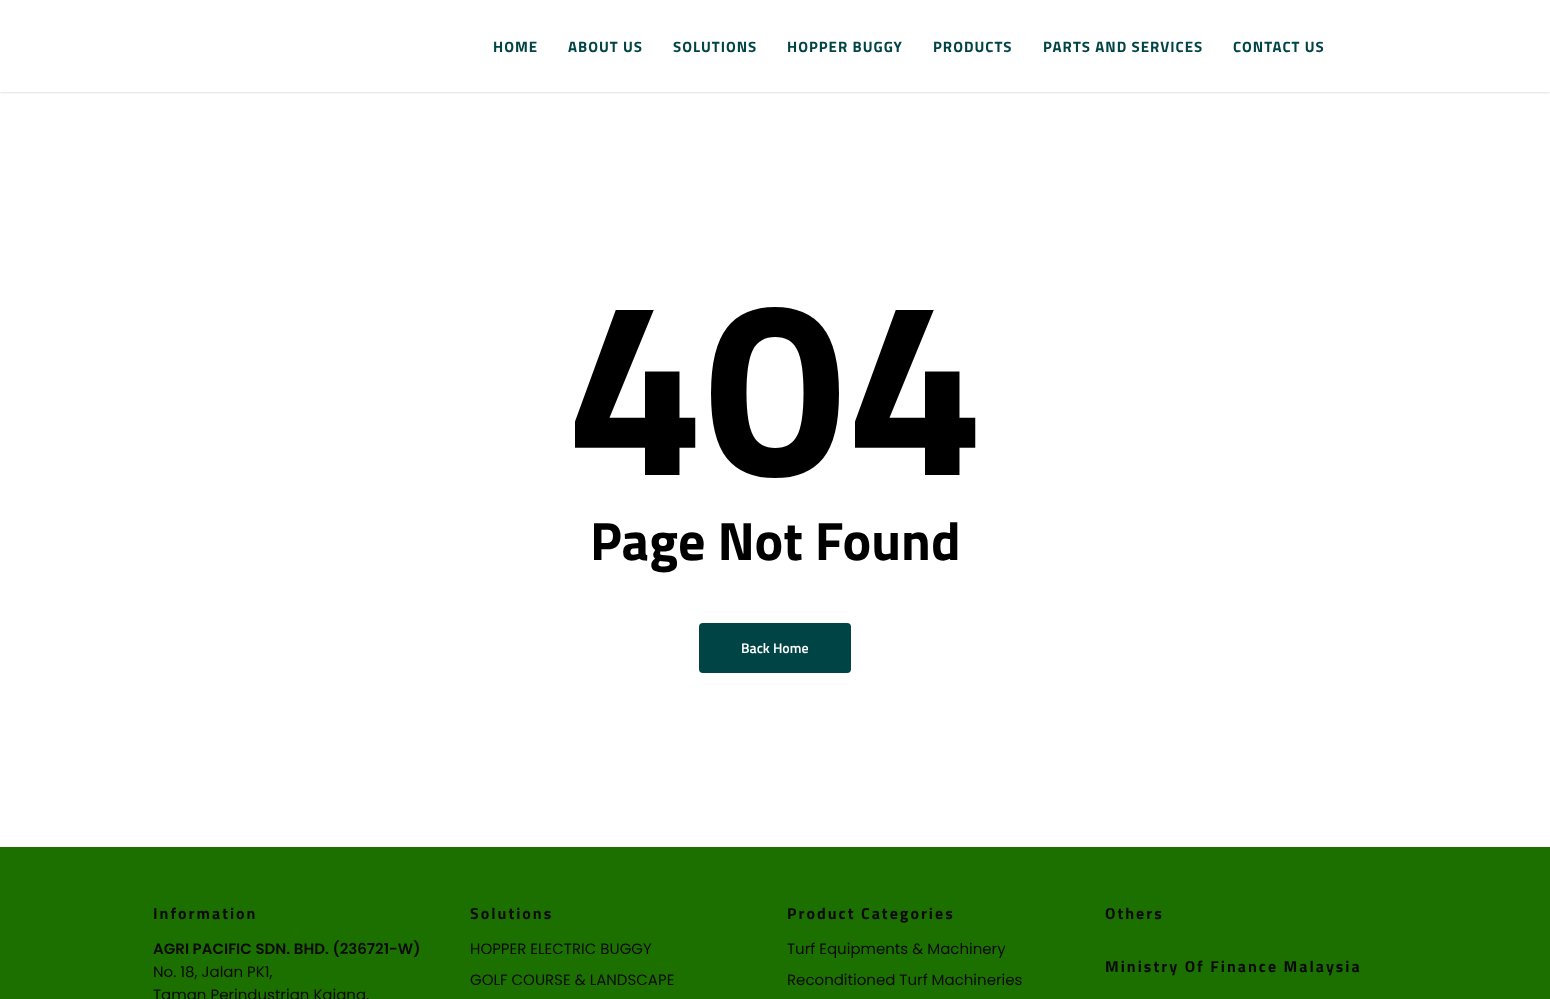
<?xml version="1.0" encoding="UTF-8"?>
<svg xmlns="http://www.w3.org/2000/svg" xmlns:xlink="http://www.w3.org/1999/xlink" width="1550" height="999">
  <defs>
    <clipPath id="clip1"><rect x="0" y="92" width="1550" height="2" /></clipPath>
  </defs>
  <rect width="100%" height="100%" fill="#ffffff" />
  <g clip-path="url(#clip1)">
    <rect width="1550" height="92" fill="#000000" fill-opacity="0.22" filter="blur(1.5px)" />
  </g>
  <rect x="699" y="623" width="152" height="50" rx="4" fill="#004445" />
  <rect y="847" width="1550" height="152" fill="#1c7000" />
  <text x="493" y="52" style="font-family: Titillium Web; font-size: 15px; font-weight: bold; letter-spacing: 1px; fill: #004445">HOME</text>
  <text x="568" y="52" style="font-family: Titillium Web; font-size: 15px; font-weight: bold; letter-spacing: 1px; fill: #004445">ABOUT US</text>
  <text x="673" y="52" style="font-family: Titillium Web; font-size: 15px; font-weight: bold; letter-spacing: 1px; fill: #004445">SOLUTIONS</text>
  <text x="787" y="52" style="font-family: Titillium Web; font-size: 15px; font-weight: bold; letter-spacing: 1px; fill: #004445">HOPPER BUGGY</text>
  <text x="933" y="52" style="font-family: Titillium Web; font-size: 15px; font-weight: bold; letter-spacing: 1px; fill: #004445">PRODUCTS</text>
  <text x="1043" y="52" style="font-family: Titillium Web; font-size: 15px; font-weight: bold; letter-spacing: 1px; fill: #004445">PARTS AND SERVICES</text>
  <text x="1233" y="52" style="font-family: Titillium Web; font-size: 15px; font-weight: bold; letter-spacing: 1px; fill: #004445">CONTACT US</text>
  <text x="565" y="475" style="font-family: Titillium Web; font-size: 250px; font-weight: bold; fill: #000000">404</text>
  <text x="590" y="560" style="font-family: Titillium Web; font-size: 54px; font-weight: bold; fill: #000000">Page Not Found</text>
  <text x="741" y="653" style="font-family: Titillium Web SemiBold; font-size: 14px; font-weight: 600; fill: #ffffff">Back Home</text>
  <text x="153" y="919" style="font-family: Titillium Web; font-size: 16px; font-weight: bold; letter-spacing: 2px; fill: #0a0a0a">Information</text>
  <text x="153" y="954" style="font-family: Poppins; font-size: 15px; font-weight: 600; fill: #0a0a0a">AGRI PACIFIC SDN. BHD. (236721-W)</text>
  <text x="153" y="977" style="font-family: Poppins; font-size: 15px; fill: #0a0a0a">No. 18, Jalan PK1,</text>
  <text x="153" y="1000" style="font-family: Poppins; font-size: 15px; fill: #0a0a0a">Taman Perindustrian Kajang,</text>
  <text x="470" y="919" style="font-family: Titillium Web; font-size: 16px; font-weight: bold; letter-spacing: 2px; fill: #0a0a0a">Solutions</text>
  <text x="470" y="954" style="font-family: Poppins; font-size: 15px; fill: #0a0a0a">HOPPER ELECTRIC BUGGY</text>
  <text x="470" y="985" style="font-family: Poppins; font-size: 15px; fill: #0a0a0a">GOLF COURSE &amp; LANDSCAPE</text>
  <text x="787" y="919" style="font-family: Titillium Web; font-size: 16px; font-weight: bold; letter-spacing: 2px; fill: #0a0a0a">Product Categories</text>
  <text x="787" y="954" style="font-family: Poppins; font-size: 15px; fill: #0a0a0a">Turf Equipments &amp; Machinery</text>
  <text x="787" y="985" style="font-family: Poppins; font-size: 15px; fill: #0a0a0a">Reconditioned Turf Machineries</text>
  <text x="1105" y="919" style="font-family: Titillium Web; font-size: 16px; font-weight: bold; letter-spacing: 2px; fill: #0a0a0a">Others</text>
  <text x="1105" y="972" style="font-family: Titillium Web; font-size: 16px; font-weight: bold; letter-spacing: 2px; fill: #0a0a0a">Ministry Of Finance Malaysia</text>
</svg>
